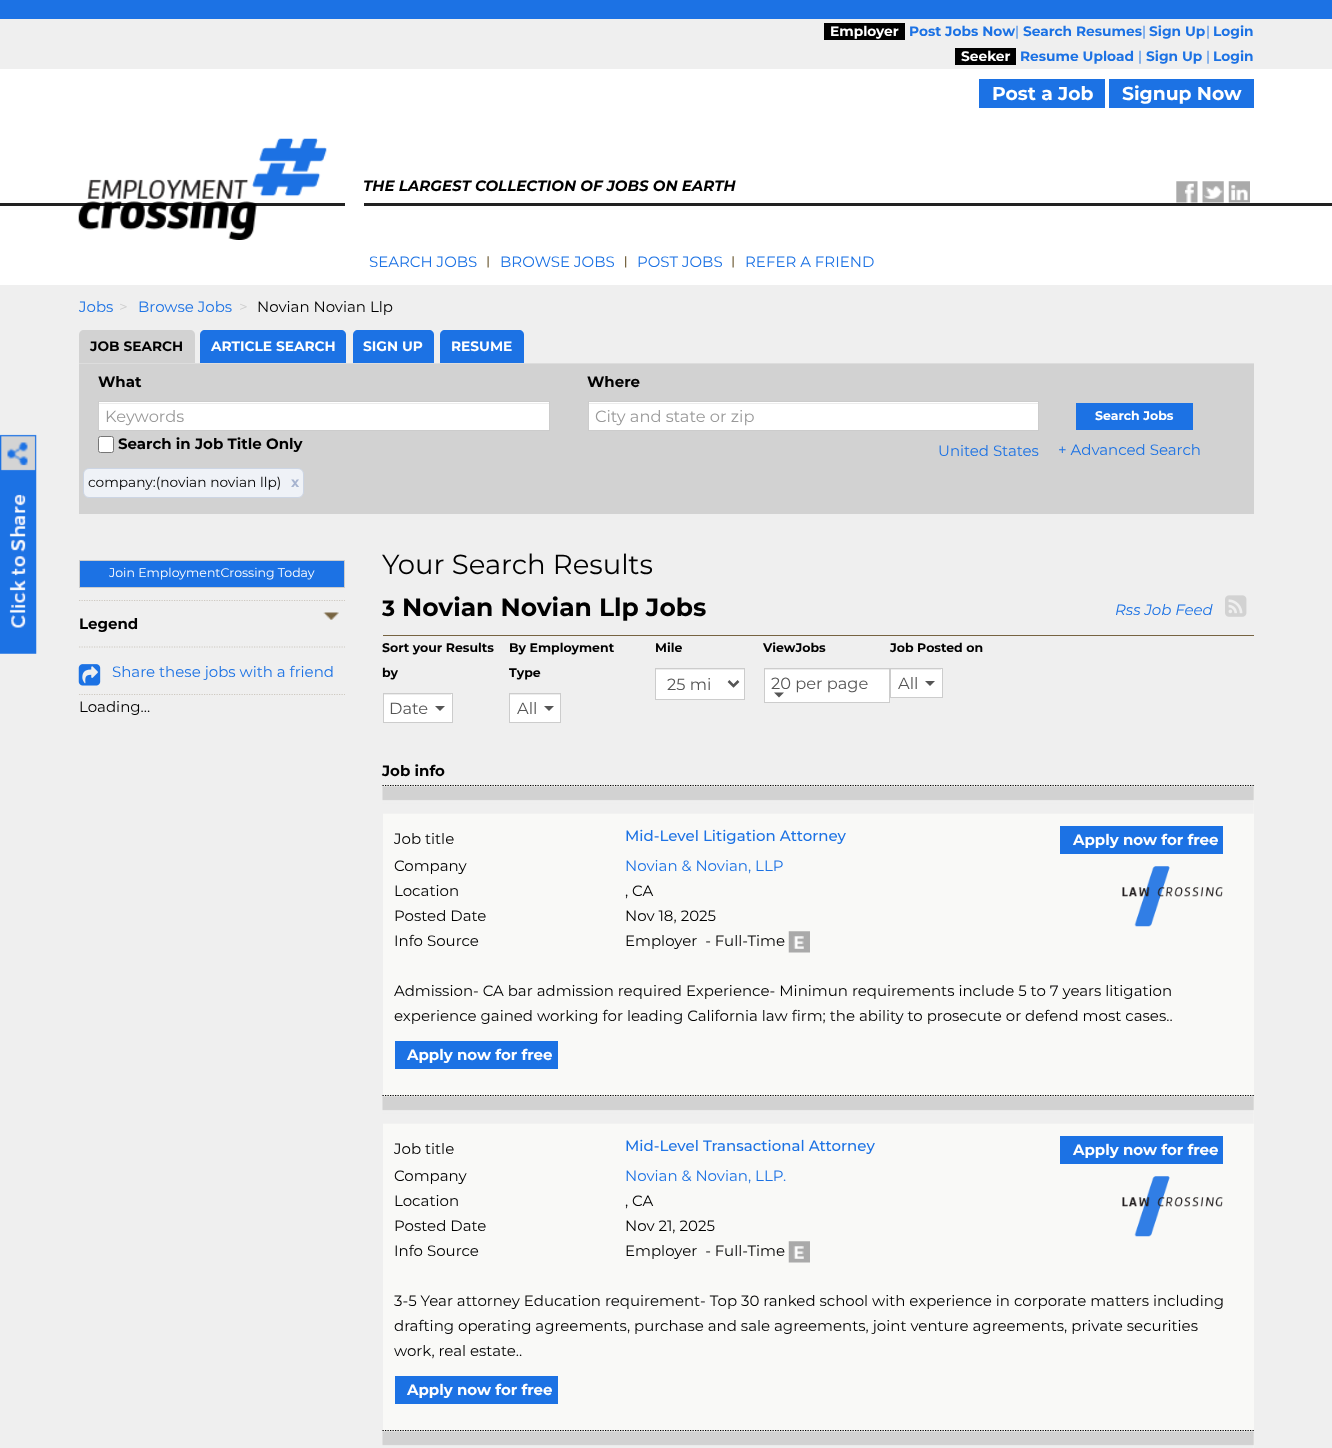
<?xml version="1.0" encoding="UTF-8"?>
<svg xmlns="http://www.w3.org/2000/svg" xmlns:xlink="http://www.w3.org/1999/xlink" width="1332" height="1448">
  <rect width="100%" height="100%" fill="#ffffff" />
  <rect y="203" width="1332" height="3" fill="#212121" />
  <rect y="19" width="1332" height="50" fill="#efefef" />
  <rect width="1332" height="19" fill="#1c72e4" />
  <rect x="824" y="23" width="81" height="17" fill="#000000" />
  <rect x="955" y="48" width="61" height="17" fill="#000000" />
  <rect x="979" y="79" width="126" height="29" fill="#1c72e4" />
  <rect x="1109" y="79" width="145" height="29" fill="#1c72e4" />
  <rect x="345" y="203" width="19" height="3" fill="#ffffff" />
  <image x="78" y="138" width="249" height="102" xlink:href="image1.png" />
  <image x="1176" y="181" width="22" height="22" xlink:href="image2.png" />
  <image x="1202" y="181" width="22" height="22" xlink:href="image3.png" />
  <image x="1228" y="181" width="22" height="22" xlink:href="image4.png" />
  <image x="487" y="256" width="2" height="12" xlink:href="image5.png" />
  <image x="625" y="256" width="2" height="12" xlink:href="image6.png" />
  <image x="732" y="256" width="2" height="12" xlink:href="image5.png" />
  <rect y="285" width="1332" height="1163" fill="#efefef" />
  <image x="0" y="434" width="37" height="220" xlink:href="image7.png" />
  <rect x="79" y="363" width="1175" height="1" fill="#dddddd" />
  <path d="M 84 330 h 106 c 3 0 5 2 5 5 v 28 h -116 v -28 c 0 -3 2 -5 5 -5 z" fill="#d2d2d2" />
  <path d="M 205 330 h 136 c 3 0 5 2 5 5 v 28 h -146 v -28 c 0 -3 2 -5 5 -5 z" fill="#1c72e4" />
  <path d="M 358 330 h 71 c 3 0 5 2 5 5 v 28 h -81 v -28 c 0 -3 2 -5 5 -5 z" fill="#1c72e4" />
  <path d="M 445 330 h 74 c 3 0 5 2 5 5 v 28 h -84 v -28 c 0 -3 2 -5 5 -5 z" fill="#1c72e4" />
  <rect x="79" y="364" width="1175" height="150" fill="#d2d2d2" />
  <rect x="99" y="402" width="450" height="28" fill="#ffffff" />
  <rect x="99" y="403" width="450" height="1" fill="#ececec" />
  <rect x="98.5" y="401.5" width="451" height="29" fill="none" stroke="#cccccc" />
  <rect x="98.5" y="436.5" width="15" height="16" rx="2" fill="#ffffff" stroke="#767676" />
  <rect x="589" y="402" width="449" height="28" fill="#ffffff" />
  <rect x="589" y="403" width="449" height="1" fill="#ececec" />
  <rect x="588.5" y="401.5" width="450" height="29" fill="none" stroke="#cccccc" />
  <rect x="1076" y="403" width="117" height="27" fill="#1c72e4" />
  <rect x="83.5" y="468.5" width="220" height="29" rx="5.5" fill="#eff2f7" stroke="#ccd5e4" />
  <rect x="79.5" y="560.5" width="265" height="27" fill="#1c72e4" stroke="#cccccc" />
  <path d="M 79 600.5 h 266" fill="none" stroke="#cec9c1" stroke-width="1.2" stroke-dasharray="1.25 1.25" />
  <path d="M 79 647 h 266" fill="none" stroke="#cec9c1" stroke-width="1.2" stroke-dasharray="1.25 1.25" />
  <image x="323" y="612" width="16" height="8" xlink:href="image8.png" />
  <image x="78" y="664" width="23" height="22" xlink:href="image9.png" />
  <path d="M 79 694.5 h 266" fill="none" stroke="#cec9c1" stroke-width="1.2" stroke-dasharray="1.25 1.25" />
  <rect x="383" y="635" width="871" height="1" fill="#766341" />
  <image x="1225" y="595" width="22" height="22" xlink:href="image10.png" />
  <rect x="384" y="694" width="68" height="28" fill="#ffffff" />
  <rect x="384" y="694" width="67" height="1" fill="#ececec" />
  <rect x="383.5" y="693.5" width="69" height="29" fill="none" stroke="#cccccc" />
  <path d="M 435 706 h 10 l -5 5 z" fill="#555555" />
  <rect x="510" y="695" width="50" height="27" fill="#ffffff" />
  <rect x="510" y="694" width="50" height="1" fill="#ececec" />
  <rect x="509.5" y="693.5" width="51" height="29" fill="none" stroke="#cccccc" />
  <path d="M 544 706 h 10 l -5 5 z" fill="#555555" />
  <rect x="656" y="670" width="88" height="29" fill="#ffffff" />
  <rect x="656" y="669" width="88" height="1" fill="#ececec" />
  <rect x="655.5" y="668.5" width="89" height="31" fill="none" stroke="#cccccc" />
  <path d="M 728.5 681 l 5 5 l 5 -5" fill="none" stroke="#555555" stroke-width="2.5" />
  <rect x="765" y="670" width="124" height="32" fill="#ffffff" />
  <rect x="765" y="669" width="124" height="1" fill="#ececec" />
  <rect x="764.5" y="668.5" width="125" height="34" fill="none" stroke="#cccccc" />
  <path d="M 774 692.5 h 10 l -5 5 z" fill="#555555" />
  <rect x="891" y="669" width="51" height="28" fill="#ffffff" />
  <rect x="891" y="669" width="50" height="1" fill="#ececec" />
  <rect x="890.5" y="668.5" width="52" height="29" fill="none" stroke="#cccccc" />
  <path d="M 925 681 h 10 l -5 5 z" fill="#555555" />
  <rect x="383" y="785" width="871" height="663" fill="#f9f9f7" />
  <image x="382" y="786" width="872" height="28" xlink:href="image11.png" />
  <path d="M 382.5 785.5 h 871.5" fill="none" stroke="#000000" stroke-width="1.2" stroke-dasharray="1.25 1.25" />
  <rect x="1060" y="826" width="163" height="28" fill="#1c72e4" />
  <image x="788" y="931" width="22" height="22" xlink:href="image12.png" />
  <image x="1122" y="866" width="101" height="61" xlink:href="image13.png" />
  <rect x="395" y="1041" width="163" height="28" fill="#1c72e4" />
  <image x="382" y="1096" width="872" height="28" xlink:href="image11.png" />
  <path d="M 382.5 1095.5 h 871.5" fill="none" stroke="#000000" stroke-width="1.2" stroke-dasharray="1.25 1.25" />
  <rect x="1060" y="1136" width="163" height="28" fill="#1c72e4" />
  <image x="788" y="1241" width="22" height="22" xlink:href="image12.png" />
  <image x="1122" y="1176" width="101" height="61" xlink:href="image13.png" />
  <rect x="395" y="1376" width="163" height="28" fill="#1c72e4" />
  <image x="382" y="1431" width="872" height="17" xlink:href="image14.png" />
  <path d="M 382.5 1430.5 h 871.5" fill="none" stroke="#000000" stroke-width="1.2" stroke-dasharray="1.25 1.25" />
  <text x="830" y="36" style="font-family: Montserrat; font-size: 13.75px; font-weight: bold; fill: #ffffff">Employer</text>
  <text x="909" y="36" style="font-family: Montserrat; font-size: 13.75px; font-weight: bold; fill: #1c72e4">Post Jobs Now</text>
  <text x="1015" y="36" style="font-family: Montserrat; font-size: 13.75px; fill: #1c72e4">|</text>
  <text x="1023" y="36" style="font-family: Montserrat; font-size: 13.75px; font-weight: bold; fill: #1c72e4">Search Resumes</text>
  <text x="1142" y="36" style="font-family: Montserrat; font-size: 13.75px; fill: #1c72e4">|</text>
  <text x="1149" y="36" style="font-family: Montserrat; font-size: 13.75px; font-weight: bold; fill: #1c72e4">Sign Up</text>
  <text x="1206" y="36" style="font-family: Montserrat; font-size: 13.75px; fill: #1c72e4">|</text>
  <text x="1213" y="36" style="font-family: Montserrat; font-size: 13.75px; font-weight: bold; fill: #1c72e4">Login</text>
  <text x="961" y="61" style="font-family: Montserrat; font-size: 13.75px; font-weight: bold; fill: #ffffff">Seeker</text>
  <text x="1020" y="61" style="font-family: Montserrat; font-size: 13.75px; font-weight: bold; fill: #1c72e4">Resume Upload</text>
  <text x="1138" y="61" style="font-family: Montserrat; font-size: 13.75px; fill: #1c72e4">|</text>
  <text x="1146" y="61" style="font-family: Montserrat; font-size: 13.75px; font-weight: bold; fill: #1c72e4">Sign Up</text>
  <text x="1206" y="61" style="font-family: Montserrat; font-size: 13.75px; fill: #1c72e4">|</text>
  <text x="1213" y="61" style="font-family: Montserrat; font-size: 13.75px; font-weight: bold; fill: #1c72e4">Login</text>
  <text x="992" y="100" style="font-family: Montserrat; font-size: 18.75px; font-weight: bold; fill: #ffffff">Post a Job</text>
  <text x="1122" y="100" style="font-family: Montserrat; font-size: 18.75px; font-weight: bold; fill: #ffffff">Signup Now</text>
  <text x="363" y="191" style="font-family: Montserrat; font-size: 15px; font-weight: bold; font-style: italic; fill: #000000">THE LARGEST COLLECTION OF JOBS ON EARTH</text>
  <text x="369" y="267" style="font-family: Montserrat; font-size: 15px; fill: #1c72e4">SEARCH JOBS</text>
  <text x="500" y="267" style="font-family: Montserrat; font-size: 15px; fill: #1c72e4">BROWSE JOBS</text>
  <text x="637" y="267" style="font-family: Montserrat; font-size: 15px; fill: #1c72e4">POST JOBS</text>
  <text x="745" y="267" style="font-family: Montserrat; font-size: 15px; fill: #1c72e4">REFER A FRIEND</text>
  <text x="79" y="312" style="font-family: Montserrat; font-size: 15px; fill: #1c72e4">Jobs</text>
  <text x="119" y="312" style="font-family: Montserrat; font-size: 15px; fill: #cccccc">&gt;</text>
  <text x="138" y="312" style="font-family: Montserrat; font-size: 15px; fill: #1c72e4">Browse Jobs</text>
  <text x="239" y="312" style="font-family: Montserrat; font-size: 15px; fill: #cccccc">&gt;</text>
  <text x="257" y="312" style="font-family: Montserrat; font-size: 15px; fill: #000000">Novian Novian Llp</text>
  <text x="90" y="351" style="font-family: Montserrat; font-size: 13.75px; font-weight: bold; fill: #000000">JOB SEARCH</text>
  <text x="211" y="351" style="font-family: Montserrat; font-size: 13.75px; font-weight: bold; fill: #ffffff">ARTICLE SEARCH</text>
  <text x="363" y="351" style="font-family: Montserrat; font-size: 13.75px; font-weight: bold; fill: #ffffff">SIGN UP</text>
  <text x="451" y="351" style="font-family: Montserrat; font-size: 13.75px; font-weight: bold; fill: #ffffff">RESUME</text>
  <text x="98" y="387" style="font-family: Montserrat; font-size: 15px; font-weight: bold; fill: #000000">What</text>
  <text x="105" y="422" style="font-family: Montserrat; font-size: 16.25px; fill: #999999">Keywords</text>
  <text x="118" y="449" style="font-family: Montserrat; font-size: 15px; font-weight: bold; fill: #000000">Search in Job Title Only</text>
  <text x="587" y="387" style="font-family: Montserrat; font-size: 15px; font-weight: bold; fill: #000000">Where</text>
  <text x="595" y="422" style="font-family: Montserrat; font-size: 16.25px; fill: #999999">City and state or zip</text>
  <text x="938" y="456" style="font-family: Montserrat; font-size: 15px; fill: #1c72e4">United States</text>
  <text x="1095" y="420" style="font-family: Montserrat; font-size: 12.5px; font-weight: bold; fill: #ffffff">Search Jobs</text>
  <text x="1058" y="455" style="font-family: Montserrat; font-size: 15px; fill: #1c72e4">+ Advanced Search</text>
  <text x="88" y="487" style="font-family: Montserrat; font-size: 13.75px; fill: #000000">company:(novian novian llp)</text>
  <text x="291" y="487" style="font-family: Montserrat; font-size: 13.75px; font-weight: bold; fill: #a6b3cf">x</text>
  <text x="109" y="577" style="font-family: Montserrat; font-size: 12.5px; fill: #ffffff">Join EmploymentCrossing Today</text>
  <text x="79" y="629" style="font-family: Montserrat; font-size: 15px; font-weight: bold; fill: #000000">Legend</text>
  <text x="112" y="677" style="font-family: Montserrat; font-size: 15px; fill: #1c72e4">Share these jobs with a friend</text>
  <text x="79" y="712" style="font-family: Montserrat; font-size: 15px; fill: #000000">Loading...</text>
  <text x="382" y="574" style="font-family: Montserrat; font-size: 27.5px; fill: #000000">Your Search Results</text>
  <text x="382" y="616" style="font-family: Montserrat; font-size: 22px; font-weight: bold; fill: #000000">3</text>
  <text x="402" y="616" style="font-family: Montserrat; font-size: 25px; font-weight: bold; fill: #000000">Novian Novian Llp Jobs</text>
  <text x="1115" y="615" style="font-family: Montserrat; font-size: 15px; font-style: italic; fill: #1c72e4">Rss Job Feed</text>
  <text x="382" y="652" style="font-family: Montserrat; font-size: 12.5px; font-weight: bold; fill: #000000">Sort your Results</text>
  <text x="382" y="677" style="font-family: Montserrat; font-size: 12.5px; font-weight: bold; fill: #000000">by</text>
  <text x="389" y="714" style="font-family: Montserrat; font-size: 16.25px; fill: #555555">Date</text>
  <text x="509" y="652" style="font-family: Montserrat; font-size: 12.5px; font-weight: bold; fill: #000000">By Employment</text>
  <text x="509" y="677" style="font-family: Montserrat; font-size: 12.5px; font-weight: bold; fill: #000000">Type</text>
  <text x="517" y="714" style="font-family: Montserrat; font-size: 16.25px; fill: #555555">All</text>
  <text x="655" y="652" style="font-family: Montserrat; font-size: 12.5px; font-weight: bold; fill: #000000">Mile</text>
  <text x="667" y="690" style="font-family: Montserrat; font-size: 16.25px; fill: #555555">25 mi</text>
  <text x="763" y="652" style="font-family: Montserrat; font-size: 12.5px; font-weight: bold; fill: #000000">ViewJobs</text>
  <text x="771" y="689" style="font-family: Montserrat; font-size: 16.25px; fill: #555555">20 per page</text>
  <text x="890" y="652" style="font-family: Montserrat; font-size: 12.5px; font-weight: bold; fill: #000000">Job Posted on</text>
  <text x="898" y="689" style="font-family: Montserrat; font-size: 16.25px; fill: #555555">All</text>
  <text x="382" y="776" style="font-family: Montserrat; font-size: 15px; font-weight: bold; fill: #000000">Job info</text>
  <text x="394" y="844" style="font-family: Montserrat; font-size: 15px; fill: #000000">Job title</text>
  <text x="625" y="841" style="font-family: Montserrat; font-size: 15px; font-weight: 500; fill: #1c72e4">Mid-Level Litigation Attorney</text>
  <text x="1073" y="845" style="font-family: Montserrat; font-size: 15px; font-weight: bold; fill: #ffffff">Apply now for free</text>
  <text x="394" y="871" style="font-family: Montserrat; font-size: 15px; fill: #000000">Company</text>
  <text x="625" y="871" style="font-family: Montserrat; font-size: 15px; fill: #1c72e4">Novian &amp; Novian, LLP</text>
  <text x="394" y="896" style="font-family: Montserrat; font-size: 15px; fill: #000000">Location</text>
  <text x="625" y="896" style="font-family: Montserrat; font-size: 15px; fill: #000000">, CA</text>
  <text x="394" y="921" style="font-family: Montserrat; font-size: 15px; fill: #000000">Posted Date</text>
  <text x="625" y="921" style="font-family: Montserrat; font-size: 15px; fill: #000000">Nov 18, 2025</text>
  <text x="394" y="946" style="font-family: Montserrat; font-size: 15px; fill: #000000">Info Source</text>
  <text x="625" y="946" style="font-family: Montserrat; font-size: 15px; fill: #000000" xml:space="preserve">Employer  - Full-Time</text>
  <text x="394" y="996" style="font-family: Montserrat; font-size: 15px; fill: #000000">Admission- CA bar admission required Experience- Minimun requirements include 5 to 7 years litigation</text>
  <text x="394" y="1021" style="font-family: Montserrat; font-size: 15px; fill: #000000">experience gained working for leading California law firm; the ability to prosecute or defend most cases..</text>
  <text x="407" y="1060" style="font-family: Montserrat; font-size: 15px; font-weight: bold; fill: #ffffff">Apply now for free</text>
  <text x="394" y="1154" style="font-family: Montserrat; font-size: 15px; fill: #000000">Job title</text>
  <text x="625" y="1151" style="font-family: Montserrat; font-size: 15px; font-weight: 500; fill: #1c72e4">Mid-Level Transactional Attorney</text>
  <text x="1073" y="1155" style="font-family: Montserrat; font-size: 15px; font-weight: bold; fill: #ffffff">Apply now for free</text>
  <text x="394" y="1181" style="font-family: Montserrat; font-size: 15px; fill: #000000">Company</text>
  <text x="625" y="1181" style="font-family: Montserrat; font-size: 15px; fill: #1c72e4">Novian &amp; Novian, LLP.</text>
  <text x="394" y="1206" style="font-family: Montserrat; font-size: 15px; fill: #000000">Location</text>
  <text x="625" y="1206" style="font-family: Montserrat; font-size: 15px; fill: #000000">, CA</text>
  <text x="394" y="1231" style="font-family: Montserrat; font-size: 15px; fill: #000000">Posted Date</text>
  <text x="625" y="1231" style="font-family: Montserrat; font-size: 15px; fill: #000000">Nov 21, 2025</text>
  <text x="394" y="1256" style="font-family: Montserrat; font-size: 15px; fill: #000000">Info Source</text>
  <text x="625" y="1256" style="font-family: Montserrat; font-size: 15px; fill: #000000" xml:space="preserve">Employer  - Full-Time</text>
  <text x="394" y="1306" style="font-family: Montserrat; font-size: 15px; fill: #000000">3-5 Year attorney Education requirement- Top 30 ranked school with experience in corporate matters including</text>
  <text x="394" y="1331" style="font-family: Montserrat; font-size: 15px; fill: #000000">drafting operating agreements, purchase and sale agreements, joint venture agreements, private securities</text>
  <text x="394" y="1356" style="font-family: Montserrat; font-size: 15px; fill: #000000">work, real estate..</text>
  <text x="407" y="1395" style="font-family: Montserrat; font-size: 15px; font-weight: bold; fill: #ffffff">Apply now for free</text>
</svg>
